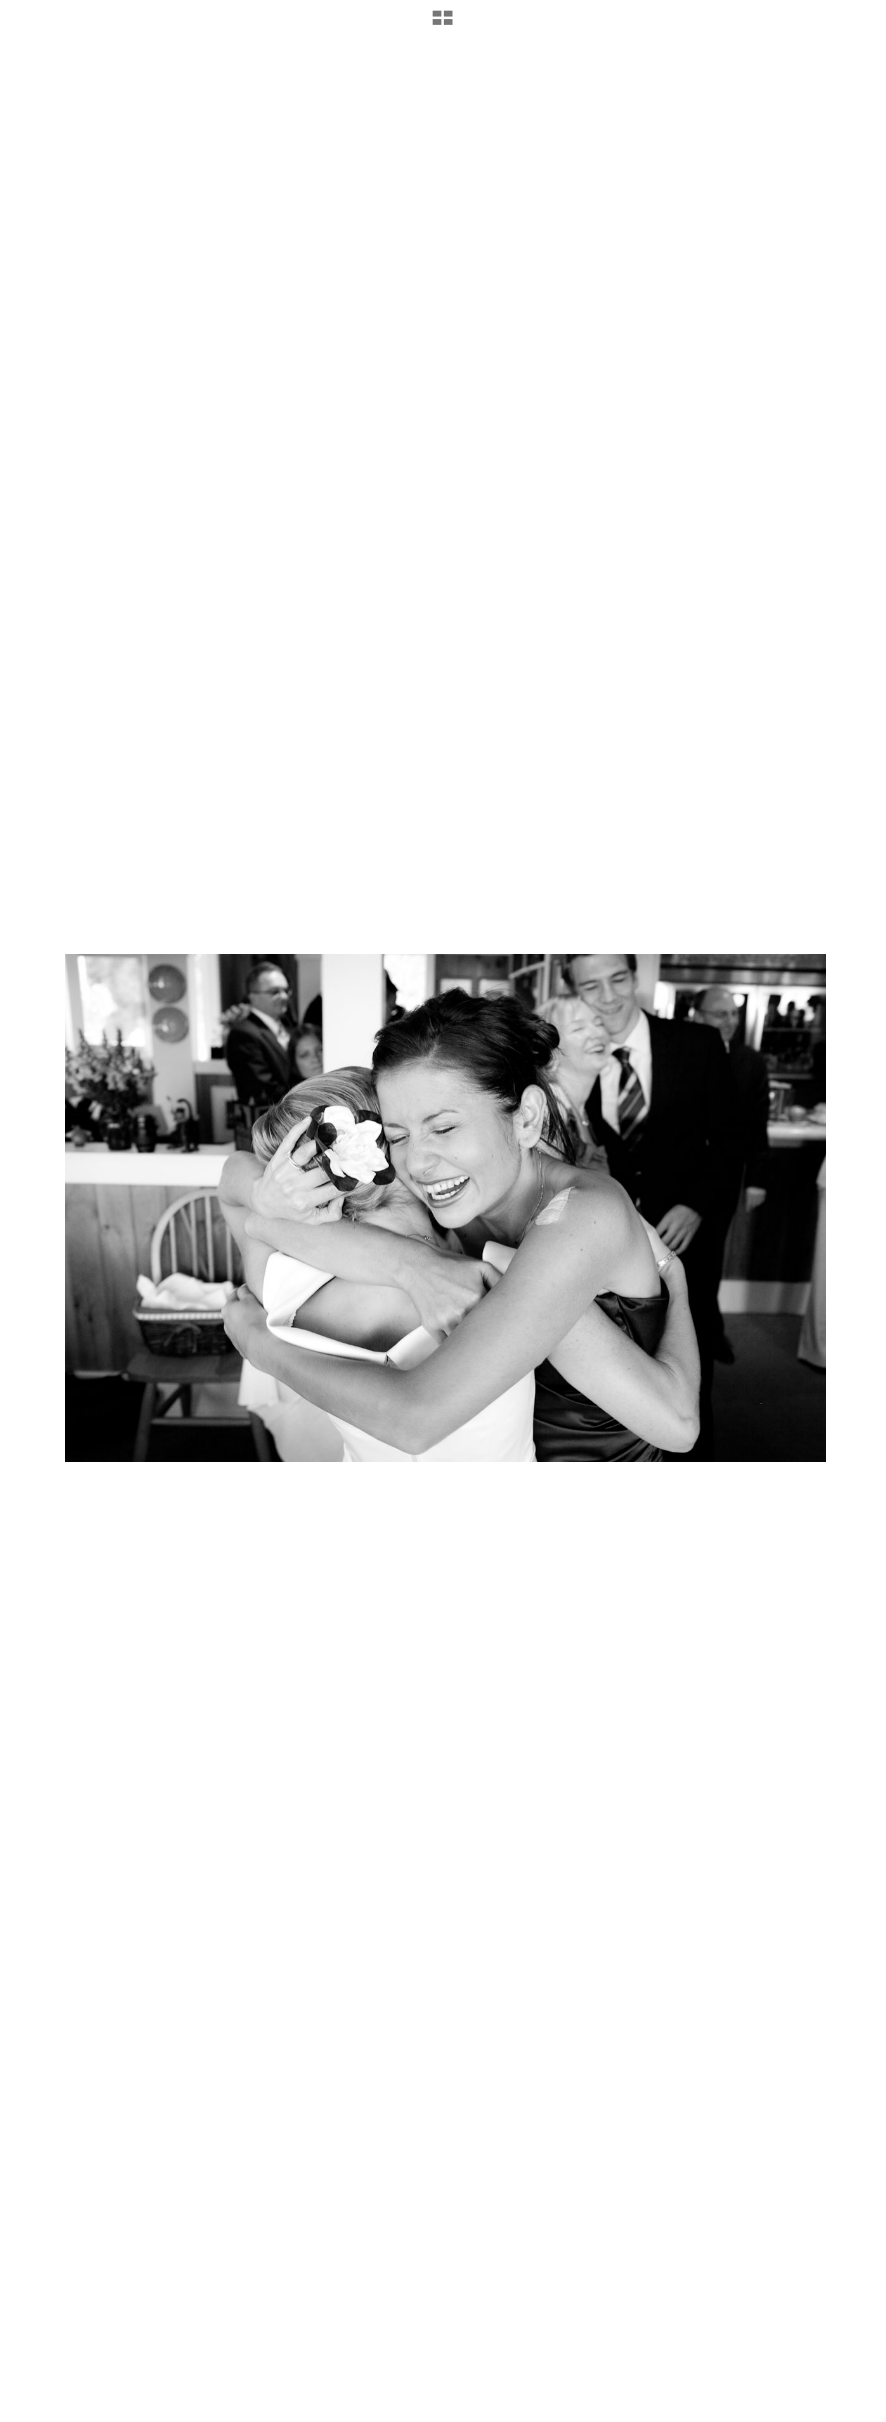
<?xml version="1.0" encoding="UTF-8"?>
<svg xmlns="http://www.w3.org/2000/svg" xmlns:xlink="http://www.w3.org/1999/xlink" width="886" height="2422">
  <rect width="100%" height="100%" fill="#ffffff" />
  <image x="432" y="10" width="21" height="15" xlink:href="image1.png" />
  <image x="65" y="954" width="761" height="508" xlink:href="image2.png" />
</svg>
